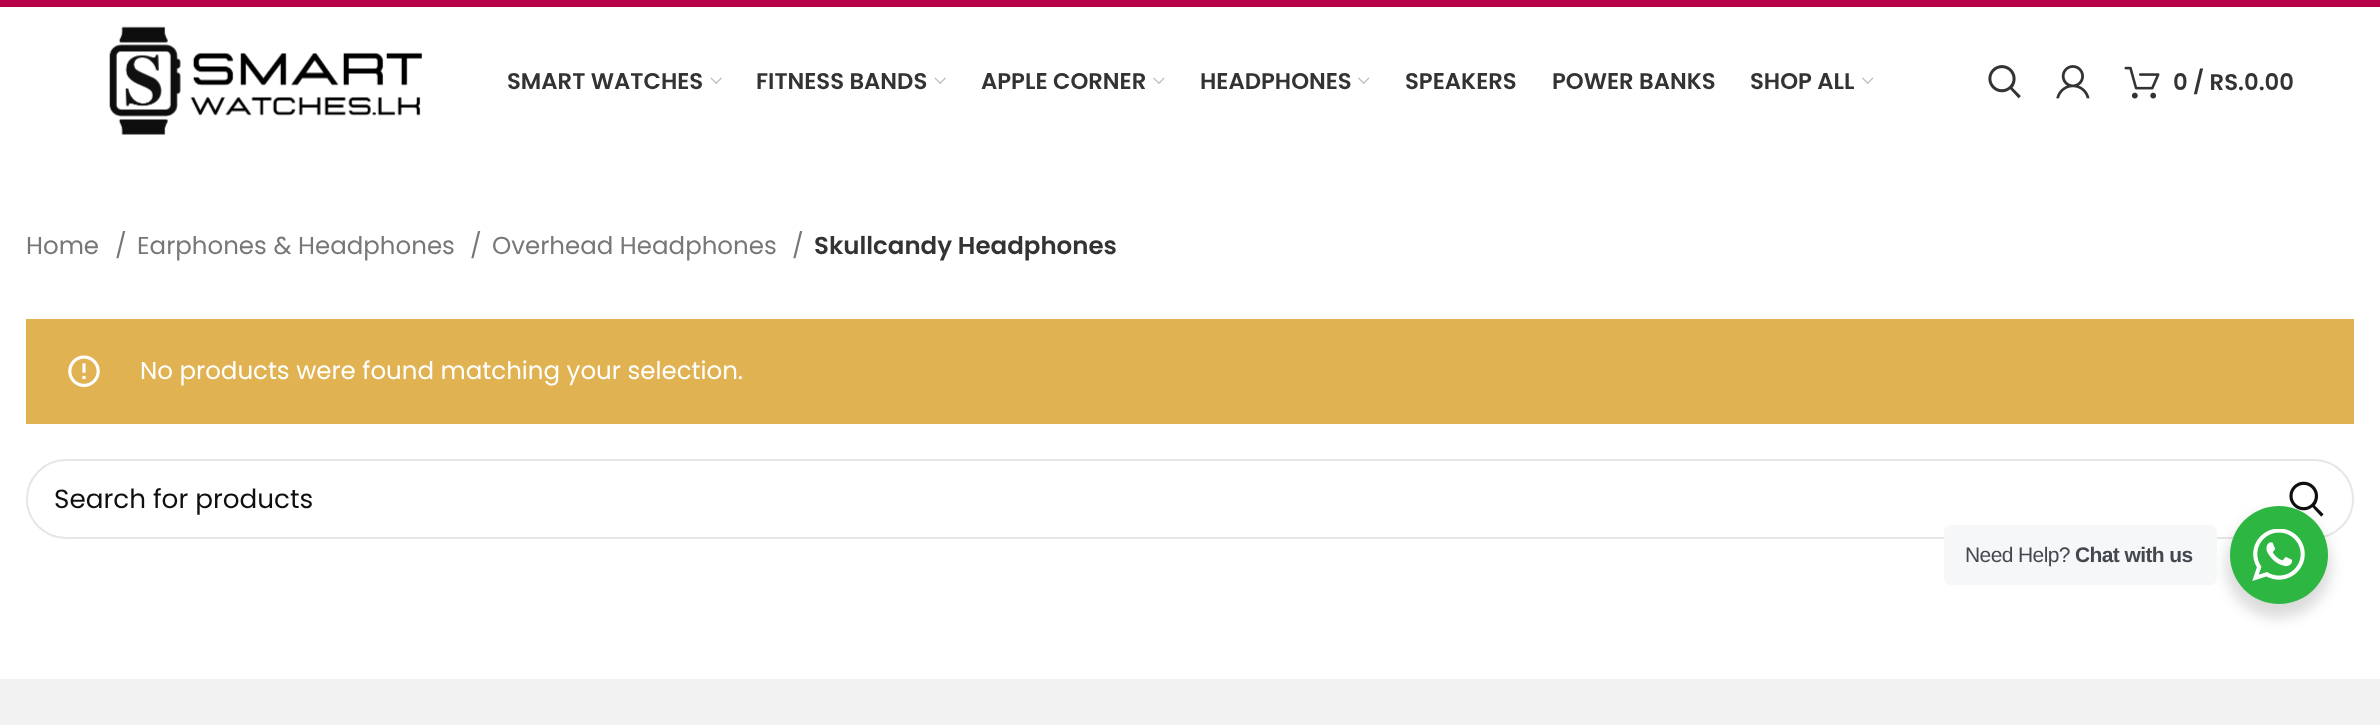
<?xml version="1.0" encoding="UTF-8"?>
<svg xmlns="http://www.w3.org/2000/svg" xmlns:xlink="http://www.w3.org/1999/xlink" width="2380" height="725">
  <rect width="100%" height="100%" fill="#ffffff" />
  <rect width="2380" height="7" fill="#b80049" />
  <image x="109" y="26" width="314" height="109" xlink:href="image1.png" />
  <image x="710" y="77" width="12" height="7" xlink:href="image2.png" />
  <image x="934" y="77" width="12" height="7" xlink:href="image2.png" />
  <image x="1153" y="77" width="12" height="7" xlink:href="image3.png" />
  <image x="1358" y="77" width="12" height="7" xlink:href="image4.png" />
  <image x="1862" y="77" width="12" height="7" xlink:href="image4.png" />
  <image x="1988" y="65" width="33" height="34" xlink:href="image5.png" />
  <image x="2056" y="65" width="34" height="34" xlink:href="image6.png" />
  <image x="2124" y="66" width="36" height="33" xlink:href="image7.png" />
  <rect x="26" y="319" width="2328" height="105" fill="#e0b252" />
  <image x="68" y="355" width="32" height="32" xlink:href="image8.png" />
  <rect x="27" y="460" width="2326" height="78" rx="39" fill="none" stroke="#e6e6e6" stroke-width="2" />
  <image x="2289" y="481" width="35" height="36" xlink:href="image9.png" />
  <rect y="679" width="2380" height="46" fill="#f2f2f2" />
  <rect x="2226" y="513" width="105" height="105" rx="52.5" fill="#000000" fill-opacity="0.14" filter="blur(7px)" />
  <rect x="1944" y="525" width="273" height="60" rx="7" fill="#f5f7f9" />
  <circle cx="2279" cy="555" r="49" fill="#2db742" />
  <image x="2252" y="529" width="53" height="52" xlink:href="image10.png" />
  <text x="507" y="89" style="font-family: Poppins; font-size: 22.75px; font-weight: 600; fill: #333333">SMART WATCHES</text>
  <text x="756" y="89" style="font-family: Poppins; font-size: 22.75px; font-weight: 600; fill: #333333">FITNESS BANDS</text>
  <text x="981" y="89" style="font-family: Poppins; font-size: 22.75px; font-weight: 600; fill: #333333">APPLE CORNER</text>
  <text x="1200" y="89" style="font-family: Poppins; font-size: 22.75px; font-weight: 600; fill: #333333">HEADPHONES</text>
  <text x="1405" y="89" style="font-family: Poppins; font-size: 22.75px; font-weight: 600; fill: #333333">SPEAKERS</text>
  <text x="1552" y="89" style="font-family: Poppins; font-size: 22.75px; font-weight: 600; fill: #333333">POWER BANKS</text>
  <text x="1750" y="89" style="font-family: Poppins; font-size: 22.75px; font-weight: 600; fill: #333333">SHOP ALL</text>
  <text x="2173" y="90" style="font-family: Poppins; font-size: 22.75px; font-weight: 600; fill: #333333">0 / RS.0.00</text>
  <text x="26" y="254" style="font-family: Poppins; font-size: 24.5px; fill: #777777">Home</text>
  <text x="115" y="254" style="font-family: Poppins; font-size: 24.5px; fill: #777777">/</text>
  <text x="137" y="254" style="font-family: Poppins; font-size: 24.5px; fill: #777777">Earphones &amp; Headphones</text>
  <text x="470" y="254" style="font-family: Poppins; font-size: 24.5px; fill: #777777">/</text>
  <text x="492" y="254" style="font-family: Poppins; font-size: 24.5px; fill: #777777">Overhead Headphones</text>
  <text x="792" y="254" style="font-family: Poppins; font-size: 24.5px; fill: #777777">/</text>
  <text x="814" y="254" style="font-family: Poppins; font-size: 24.5px; font-weight: 600; fill: #333333">Skullcandy Headphones</text>
  <text x="140" y="379" style="font-family: Poppins; font-size: 24.5px; fill: #ffffff">No products were found matching your selection.</text>
  <text x="54" y="508" style="font-family: Poppins; font-size: 26.25px; fill: #0f0f0f">Search for products</text>
  <text x="1965" y="562" style="font-family: Liberation Sans; font-size: 21px; letter-spacing: -0.6px; fill: #43474e">Need Help?</text>
  <text x="2075" y="562" style="font-family: Liberation Sans; font-size: 21px; font-weight: bold; letter-spacing: -0.6px; fill: #43474e">Chat with us</text>
</svg>
